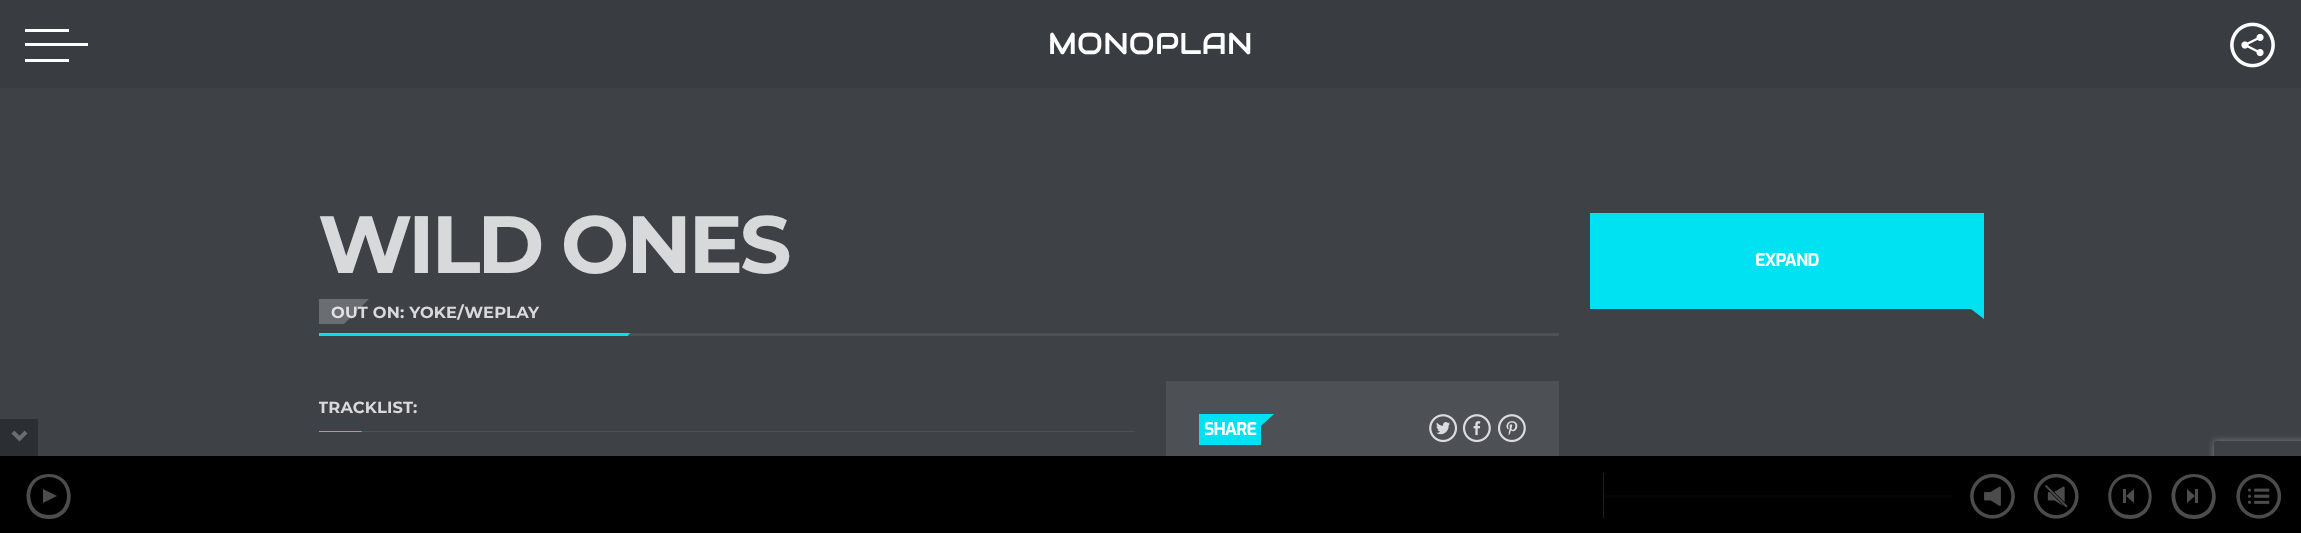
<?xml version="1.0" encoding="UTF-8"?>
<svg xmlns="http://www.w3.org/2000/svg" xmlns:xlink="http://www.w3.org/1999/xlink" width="2301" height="533">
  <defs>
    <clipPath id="clip1"><rect x="319" y="333" width="1240" height="3" /></clipPath>
    <clipPath id="clip2"><rect x="319" y="431" width="816" height="1" /></clipPath>
    <clipPath id="clip3"><path d="M 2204 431 h 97 v 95 h -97 z m 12.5 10 h 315 c 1.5 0 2.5 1 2.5 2.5 v 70 c 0 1.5 -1 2.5 -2.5 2.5 h -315 c -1.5 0 -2.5 -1 -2.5 -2.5 v -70 c 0 -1.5 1 -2.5 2.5 -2.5 z" clip-rule="evenodd" /></clipPath>
    <clipPath id="clip4"><rect x="319" y="391" width="775" height="30" /></clipPath>
  </defs>
  <rect width="100%" height="100%" fill="#3e4247" />
  <rect width="2301" height="88" fill="#393d41" />
  <rect x="25" y="29" width="44" height="3" fill="#ffffff" />
  <rect x="25" y="43" width="63" height="3" fill="#ffffff" />
  <rect x="25" y="59" width="44" height="3" fill="#ffffff" />
  <image x="2230" y="22" width="45" height="46" xlink:href="image1.png" />
  <rect x="627" y="333" width="932" height="3" fill="#4d5156" />
  <g clip-path="url(#clip1)">
    <path d="M 319 332 h 312 l -5 6 h -307 z" fill="#00e2f2" />
  </g>
  <rect x="361" y="431" width="774" height="1" fill="#4d5156" />
  <g clip-path="url(#clip2)">
    <path d="M 319 431 h 43 l -3 4 h -40 z" fill="#00e2f2" />
  </g>
  <rect x="1166" y="381" width="393" height="75" fill="#4d5156" />
  <rect x="1199" y="414" width="62" height="31" fill="#00e2f2" />
  <path d="M 1261 426 v -12 h 13 z" fill="#00e2f2" />
  <image x="1429" y="414" width="29" height="29" xlink:href="image2.png" />
  <image x="1462" y="414" width="29" height="29" xlink:href="image3.png" />
  <image x="1497" y="414" width="29" height="29" xlink:href="image4.png" />
  <rect x="1590" y="213" width="394" height="96" fill="#00e2f2" />
  <path d="M 1984 309 v 10 l -13 -10 z" fill="#00e2f2" />
  <g clip-path="url(#clip3)">
    <rect x="2214" y="441" width="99" height="75" rx="2.5" fill="#808080" filter="blur(3px)" />
  </g>
  <rect y="456" width="2301" height="77" fill="#000000" />
  <rect y="419" width="38" height="37" fill="#2b2e32" />
  <image x="11" y="430" width="17" height="12" xlink:href="image5.png" />
  <path d="M 49 474 c 29 0 29 45 0 45 c -30 0 -30 -45 0 -45 z m 0 41 c 24 0 24 -38 0 -38 c -25 0 -25 38 0 38 z m -6 -12 v -14 l 14 7 z" fill="#4d4d4d" />
  <rect x="1603" y="495" width="350" height="3" fill="#040404" />
  <rect x="1603" y="473" width="1" height="45" fill="#1f1f1f" />
  <image x="1970" y="473" width="45" height="46" xlink:href="image6.png" />
  <image x="2033" y="473" width="46" height="46" xlink:href="image7.png" />
  <path d="M 2130 474 c 29 0 29 45 0 45 c -29 0 -29 -45 0 -45 z m 0 41 c 25 0 25 -38 0 -38 c -25 0 -25 38 0 38 z m 4 -12 l -8 -7 l 8 -7 z m -11 -14 h 3 v 14 h -3 z" fill="#4d4d4d" />
  <path d="M 2194 474 c 29 0 29 45 0 45 c -30 0 -30 -45 0 -45 z m 0 41 c 24 0 24 -38 0 -38 c -25 0 -25 38 0 38 z m -7 -12 v -14 l 8 7 z m 8 -8 v -6 h 3 v 14 h -3 z" fill="#4d4d4d" />
  <image x="2236" y="474" width="46" height="45" xlink:href="image8.png" />
  <text x="1048" y="54" style="font-family: Audiowide; font-size: 30px; letter-spacing: 0.25px; fill: #ffffff">MONOPLAN</text>
  <text x="318" y="273" style="font-family: Montserrat; font-size: 81.25px; font-weight: bold; letter-spacing: -3.25px; fill: #d8d9da">WILD ONES</text>
  <text x="331" y="318" style="font-family: Montserrat; font-size: 16.25px; font-weight: bold; letter-spacing: 0.2px; fill: #d8d9da">OUT ON: YOKE/WEPLAY</text>
  <path d="M 319 299 h 50 l -25 25 h -25 z" fill="#ffffff" fill-opacity="0.23" />
  <g clip-path="url(#clip4)">
    <text x="318" y="413" style="font-family: Montserrat; font-size: 16.25px; font-weight: bold; letter-spacing: 0.2px; fill: #d8d9da">TRACKLIST:</text>
  </g>
  <text x="1204" y="435" style="font-family: Exo; font-size: 17.5px; font-weight: bold; letter-spacing: -0.75px; fill: #ffffff">SHARE</text>
  <text x="1755" y="266" style="font-family: Exo; font-size: 17.5px; font-weight: bold; letter-spacing: -0.75px; fill: #ffffff">EXPAND</text>
</svg>
